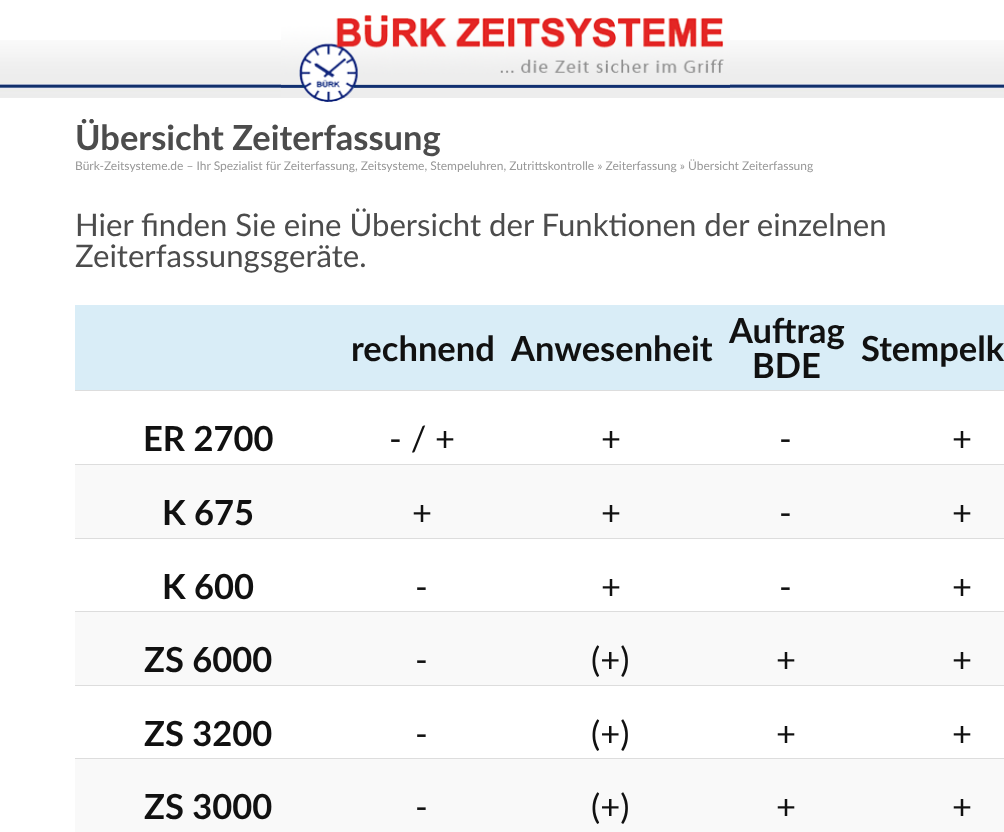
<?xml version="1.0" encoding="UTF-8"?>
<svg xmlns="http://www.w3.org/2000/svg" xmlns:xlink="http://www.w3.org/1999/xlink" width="1004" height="832">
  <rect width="100%" height="100%" fill="#ffffff" />
  <image x="0" y="40" width="1004" height="58" xlink:href="image1.png" />
  <image x="281" y="15" width="449" height="87" xlink:href="image2.png" />
  <rect x="75" y="305" width="929" height="85" fill="#d9edf7" />
  <rect x="75" y="390" width="929" height="1" fill="#dddddd" />
  <rect x="75" y="465" width="929" height="73" fill="#f9f9f9" />
  <rect x="75" y="464" width="929" height="1" fill="#dddddd" />
  <rect x="75" y="538" width="929" height="1" fill="#dddddd" />
  <rect x="75" y="612" width="929" height="73" fill="#f9f9f9" />
  <rect x="75" y="611" width="929" height="1" fill="#dddddd" />
  <rect x="75" y="685" width="929" height="1" fill="#dddddd" />
  <rect x="75" y="759" width="929" height="73" fill="#f9f9f9" />
  <rect x="75" y="758" width="929" height="1" fill="#dddddd" />
  <text x="75" y="150" style="font-family: Lato; font-size: 34.5px; font-weight: bold; fill: #4c4c4c">Übersicht Zeiterfassung</text>
  <text x="75" y="170" style="font-family: Lato; font-size: 12px; fill: #989898">Bürk-Zeitsysteme.de – Ihr Spezialist für Zeiterfassung, Zeitsysteme, Stempeluhren, Zutrittskontrolle » Zeiterfassung » Übersicht Zeiterfassung</text>
  <text x="75" y="236" style="font-family: Lato; font-size: 31.1px; fill: #4c4c4c">Hier finden Sie eine Übersicht der Funktionen der einzelnen</text>
  <text x="75" y="267" style="font-family: Lato; font-size: 31.1px; fill: #4c4c4c">Zeiterfassungsgeräte.</text>
  <text x="351" y="361" style="font-family: Lato; font-size: 34.5px; font-weight: bold; fill: #111111">rechnend</text>
  <text x="511" y="361" style="font-family: Lato; font-size: 34.5px; font-weight: bold; fill: #111111">Anwesenheit</text>
  <text x="729" y="343" style="font-family: Lato; font-size: 34.5px; font-weight: bold; fill: #111111">Auftrag</text>
  <text x="752" y="378" style="font-family: Lato; font-size: 34.5px; font-weight: bold; fill: #111111">BDE</text>
  <text x="861" y="361" style="font-family: Lato; font-size: 34.5px; font-weight: bold; fill: #111111">Stempelk</text>
  <text x="143" y="451" style="font-family: Lato; font-size: 34.5px; font-weight: bold; fill: #111111">ER 2700</text>
  <text x="389" y="451" style="font-family: Lato; font-size: 34.5px; fill: #111111">- / +</text>
  <text x="601" y="451" style="font-family: Lato; font-size: 34.5px; fill: #111111">+</text>
  <text x="779" y="451" style="font-family: Lato; font-size: 34.5px; fill: #111111">-</text>
  <text x="952" y="451" style="font-family: Lato; font-size: 34.5px; fill: #111111">+</text>
  <text x="162" y="525" style="font-family: Lato; font-size: 34.5px; font-weight: bold; fill: #111111">K 675</text>
  <text x="412" y="525" style="font-family: Lato; font-size: 34.5px; fill: #111111">+</text>
  <text x="601" y="525" style="font-family: Lato; font-size: 34.5px; fill: #111111">+</text>
  <text x="779" y="525" style="font-family: Lato; font-size: 34.5px; fill: #111111">-</text>
  <text x="952" y="525" style="font-family: Lato; font-size: 34.5px; fill: #111111">+</text>
  <text x="162" y="599" style="font-family: Lato; font-size: 34.5px; font-weight: bold; fill: #111111">K 600</text>
  <text x="415" y="599" style="font-family: Lato; font-size: 34.5px; fill: #111111">-</text>
  <text x="601" y="599" style="font-family: Lato; font-size: 34.5px; fill: #111111">+</text>
  <text x="779" y="599" style="font-family: Lato; font-size: 34.5px; fill: #111111">-</text>
  <text x="952" y="599" style="font-family: Lato; font-size: 34.5px; fill: #111111">+</text>
  <text x="144" y="672" style="font-family: Lato; font-size: 34.5px; font-weight: bold; fill: #111111">ZS 6000</text>
  <text x="415" y="672" style="font-family: Lato; font-size: 34.5px; fill: #111111">-</text>
  <text x="591" y="672" style="font-family: Lato; font-size: 34.5px; fill: #111111">(+)</text>
  <text x="776" y="672" style="font-family: Lato; font-size: 34.5px; fill: #111111">+</text>
  <text x="952" y="672" style="font-family: Lato; font-size: 34.5px; fill: #111111">+</text>
  <text x="144" y="746" style="font-family: Lato; font-size: 34.5px; font-weight: bold; fill: #111111">ZS 3200</text>
  <text x="415" y="746" style="font-family: Lato; font-size: 34.5px; fill: #111111">-</text>
  <text x="591" y="746" style="font-family: Lato; font-size: 34.5px; fill: #111111">(+)</text>
  <text x="776" y="746" style="font-family: Lato; font-size: 34.5px; fill: #111111">+</text>
  <text x="952" y="746" style="font-family: Lato; font-size: 34.5px; fill: #111111">+</text>
  <text x="144" y="819" style="font-family: Lato; font-size: 34.5px; font-weight: bold; fill: #111111">ZS 3000</text>
  <text x="415" y="819" style="font-family: Lato; font-size: 34.5px; fill: #111111">-</text>
  <text x="591" y="819" style="font-family: Lato; font-size: 34.5px; fill: #111111">(+)</text>
  <text x="776" y="819" style="font-family: Lato; font-size: 34.5px; fill: #111111">+</text>
  <text x="952" y="819" style="font-family: Lato; font-size: 34.5px; fill: #111111">+</text>
</svg>
